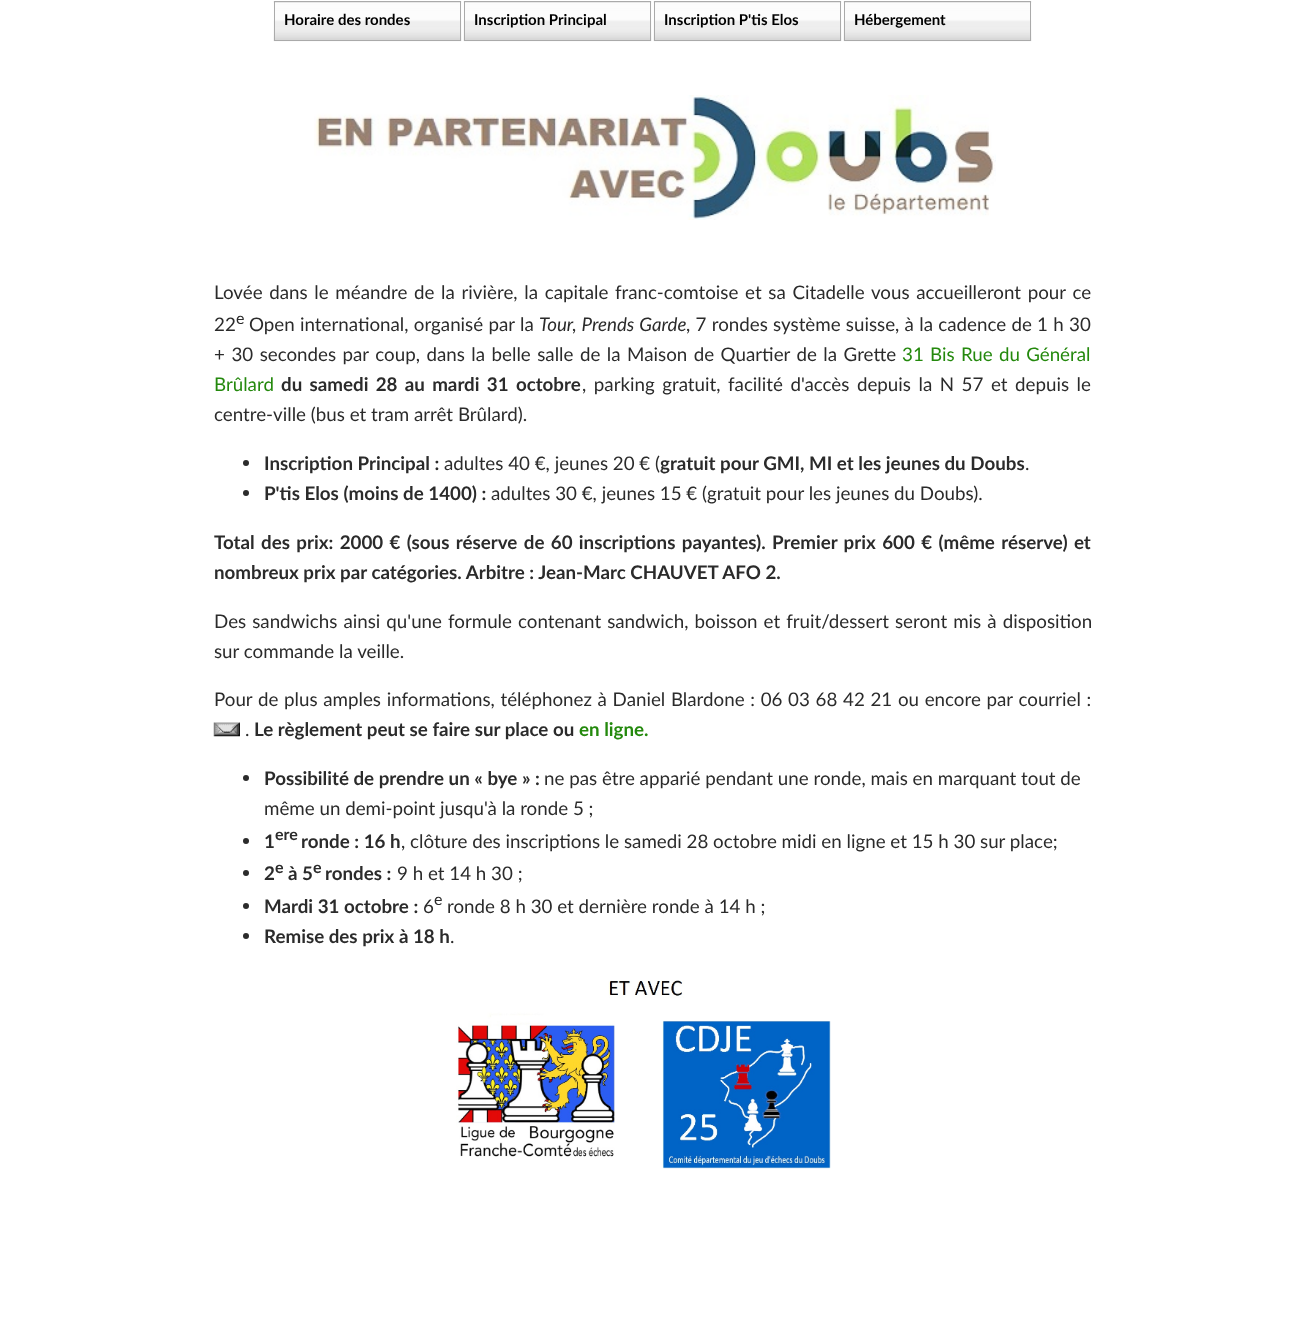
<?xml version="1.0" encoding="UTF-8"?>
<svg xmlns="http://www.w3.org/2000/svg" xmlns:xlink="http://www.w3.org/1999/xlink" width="1305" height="1342">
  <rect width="100%" height="100%" fill="#ffffff" />
  <image x="273" y="1" width="189" height="41" xlink:href="image1.png" />
  <rect x="274.5" y="1.5" width="186" height="39" fill="none" stroke="#aaaaaa" />
  <image x="463" y="1" width="189" height="41" xlink:href="image1.png" />
  <rect x="464.5" y="1.5" width="186" height="39" fill="none" stroke="#aaaaaa" />
  <image x="653" y="1" width="189" height="41" xlink:href="image1.png" />
  <rect x="654.5" y="1.5" width="186" height="39" fill="none" stroke="#aaaaaa" />
  <image x="843" y="1" width="189" height="41" xlink:href="image1.png" />
  <rect x="844.5" y="1.5" width="186" height="39" fill="none" stroke="#aaaaaa" />
  <image x="314" y="95" width="682" height="125" xlink:href="image2.png" />
  <circle cx="246" cy="463" r="3" fill="#2b2b2b" />
  <circle cx="246" cy="493" r="3" fill="#2b2b2b" />
  <image x="213" y="722" width="27" height="15" xlink:href="image3.png" />
  <circle cx="246" cy="778" r="3" fill="#2b2b2b" />
  <circle cx="246" cy="841" r="3" fill="#2b2b2b" />
  <circle cx="246" cy="873" r="3" fill="#2b2b2b" />
  <circle cx="246" cy="906" r="3" fill="#2b2b2b" />
  <circle cx="246" cy="936" r="3" fill="#2b2b2b" />
  <image x="456" y="980" width="375" height="189" xlink:href="image4.png" />
  <text x="284" y="25" style="font-family: Lato; font-size: 15px; font-weight: bold; fill: #000000">Horaire des rondes</text>
  <text x="474" y="25" style="font-family: Lato; font-size: 15px; font-weight: bold; fill: #000000">Inscription Principal</text>
  <text x="664" y="25" style="font-family: Lato; font-size: 15px; font-weight: bold; fill: #000000">Inscription P'tis Elos</text>
  <text x="854" y="25" style="font-family: Lato; font-size: 15px; font-weight: bold; fill: #000000">Hébergement</text>
  <text x="214" y="299" word-spacing="1.9" style="font-family: Lato; font-size: 18.75px; fill: #2b2b2b">Lovée dans le méandre de la rivière, la capitale franc-comtoise et sa Citadelle vous accueilleront pour ce</text>
  <text x="214" y="331" style="font-family: Lato; font-size: 18.75px; fill: #2b2b2b">22</text>
  <text x="236" y="324" style="font-family: Lato; font-size: 16px; fill: #2b2b2b">e</text>
  <text x="249" y="331" word-spacing="0.5" style="font-family: Lato; font-size: 18.75px; fill: #2b2b2b">Open international, organisé par la</text>
  <text x="539" y="331" word-spacing="0.5" style="font-family: Lato; font-size: 18.75px; font-style: italic; fill: #2b2b2b">Tour, Prends Garde</text>
  <text x="686" y="331" word-spacing="0.5" style="font-family: Lato; font-size: 18.75px; fill: #2b2b2b">, 7 rondes système suisse, à la cadence de 1 h 30</text>
  <text x="214" y="361" word-spacing="1.7" style="font-family: Lato; font-size: 18.75px; fill: #2b2b2b">+ 30 secondes par coup, dans la belle salle de la Maison de Quartier de la Grette</text>
  <text x="902" y="361" word-spacing="1.5" style="font-family: Lato; font-size: 18.75px; fill: #24890d">31 Bis Rue du Général</text>
  <text x="214" y="391" style="font-family: Lato; font-size: 18.75px; fill: #24890d">Brûlard</text>
  <text x="281" y="391" word-spacing="2.75" style="font-family: Lato; font-size: 18.75px; font-weight: bold; fill: #2b2b2b">du samedi 28 au mardi 31 octobre</text>
  <text x="582" y="391" word-spacing="2.75" style="font-family: Lato; font-size: 18.75px; fill: #2b2b2b">, parking gratuit, facilité d'accès depuis la N 57 et depuis le</text>
  <text x="214" y="421" style="font-family: Lato; font-size: 18.75px; fill: #2b2b2b">centre-ville (bus et tram arrêt Brûlard).</text>
  <text x="264" y="470" style="font-family: Lato; font-size: 18.75px; font-weight: bold; fill: #2b2b2b">Inscription Principal :</text>
  <text x="444" y="470" style="font-family: Lato; font-size: 18.75px; fill: #2b2b2b">adultes 40 €, jeunes 20 € (</text>
  <text x="660" y="470" style="font-family: Lato; font-size: 18.75px; font-weight: bold; fill: #2b2b2b">gratuit pour GMI, MI et les jeunes du Doubs</text>
  <text x="1025" y="470" style="font-family: Lato; font-size: 18.75px; fill: #2b2b2b">.</text>
  <text x="264" y="500" style="font-family: Lato; font-size: 18.75px; font-weight: bold; fill: #2b2b2b">P'tis Elos (moins de 1400) :</text>
  <text x="491" y="500" style="font-family: Lato; font-size: 18.75px; fill: #2b2b2b">adultes 30 €, jeunes 15 € (gratuit pour les jeunes du Doubs).</text>
  <text x="214" y="549" word-spacing="1.8" style="font-family: Lato; font-size: 18.75px; font-weight: bold; fill: #2b2b2b">Total des prix: 2000 € (sous réserve de 60 inscriptions payantes). Premier prix 600 € (même réserve) et</text>
  <text x="214" y="579" style="font-family: Lato; font-size: 18.75px; font-weight: bold; fill: #2b2b2b">nombreux prix par catégories. Arbitre : Jean-Marc CHAUVET AFO 2.</text>
  <text x="214" y="628" word-spacing="1.25" style="font-family: Lato; font-size: 18.75px; fill: #2b2b2b">Des sandwichs ainsi qu'une formule contenant sandwich, boisson et fruit/dessert seront mis à disposition</text>
  <text x="214" y="658" style="font-family: Lato; font-size: 18.75px; fill: #2b2b2b">sur commande la veille.</text>
  <text x="214" y="706" word-spacing="0.9" style="font-family: Lato; font-size: 18.75px; fill: #2b2b2b">Pour de plus amples informations, téléphonez à Daniel Blardone : 06 03 68 42 21 ou encore par courriel :</text>
  <text x="245" y="736" style="font-family: Lato; font-size: 18.75px; fill: #2b2b2b">.</text>
  <text x="254" y="736" style="font-family: Lato; font-size: 18.75px; font-weight: bold; fill: #2b2b2b">Le règlement peut se faire sur place ou</text>
  <text x="579" y="736" style="font-family: Lato; font-size: 18.75px; font-weight: bold; fill: #24890d">en ligne.</text>
  <text x="264" y="785" style="font-family: Lato; font-size: 18.75px; font-weight: bold; fill: #2b2b2b">Possibilité de prendre un « bye » :</text>
  <text x="544" y="785" style="font-family: Lato; font-size: 18.75px; fill: #2b2b2b">ne pas être apparié pendant une ronde, mais en marquant tout de</text>
  <text x="264" y="815" style="font-family: Lato; font-size: 18.75px; fill: #2b2b2b">même un demi-point jusqu'à la ronde 5 ;</text>
  <text x="264" y="848" style="font-family: Lato; font-size: 18.75px; font-weight: bold; fill: #2b2b2b">1</text>
  <text x="275" y="840" style="font-family: Lato; font-size: 16px; font-weight: bold; fill: #2b2b2b">ere</text>
  <text x="301" y="848" style="font-family: Lato; font-size: 18.75px; font-weight: bold; fill: #2b2b2b">ronde : 16 h</text>
  <text x="401" y="848" style="font-family: Lato; font-size: 18.75px; fill: #2b2b2b">, clôture des inscriptions le samedi 28 octobre midi en ligne et 15 h 30 sur place;</text>
  <text x="264" y="880" style="font-family: Lato; font-size: 18.75px; font-weight: bold; fill: #2b2b2b">2</text>
  <text x="275" y="873" style="font-family: Lato; font-size: 16px; font-weight: bold; fill: #2b2b2b">e</text>
  <text x="288" y="880" style="font-family: Lato; font-size: 18.75px; font-weight: bold; fill: #2b2b2b">à 5</text>
  <text x="313" y="873" style="font-family: Lato; font-size: 16px; font-weight: bold; fill: #2b2b2b">e</text>
  <text x="325" y="880" style="font-family: Lato; font-size: 18.75px; font-weight: bold; fill: #2b2b2b">rondes :</text>
  <text x="397" y="880" style="font-family: Lato; font-size: 18.75px; fill: #2b2b2b">9 h et 14 h 30 ;</text>
  <text x="264" y="913" style="font-family: Lato; font-size: 18.75px; font-weight: bold; fill: #2b2b2b">Mardi 31 octobre :</text>
  <text x="423" y="913" style="font-family: Lato; font-size: 18.75px; fill: #2b2b2b">6</text>
  <text x="434" y="905" style="font-family: Lato; font-size: 16px; fill: #2b2b2b">e</text>
  <text x="447" y="913" style="font-family: Lato; font-size: 18.75px; fill: #2b2b2b">ronde 8 h 30 et dernière ronde à 14 h ;</text>
  <text x="264" y="943" style="font-family: Lato; font-size: 18.75px; font-weight: bold; fill: #2b2b2b">Remise des prix à 18 h</text>
  <text x="450" y="943" style="font-family: Lato; font-size: 18.75px; fill: #2b2b2b">.</text>
</svg>
